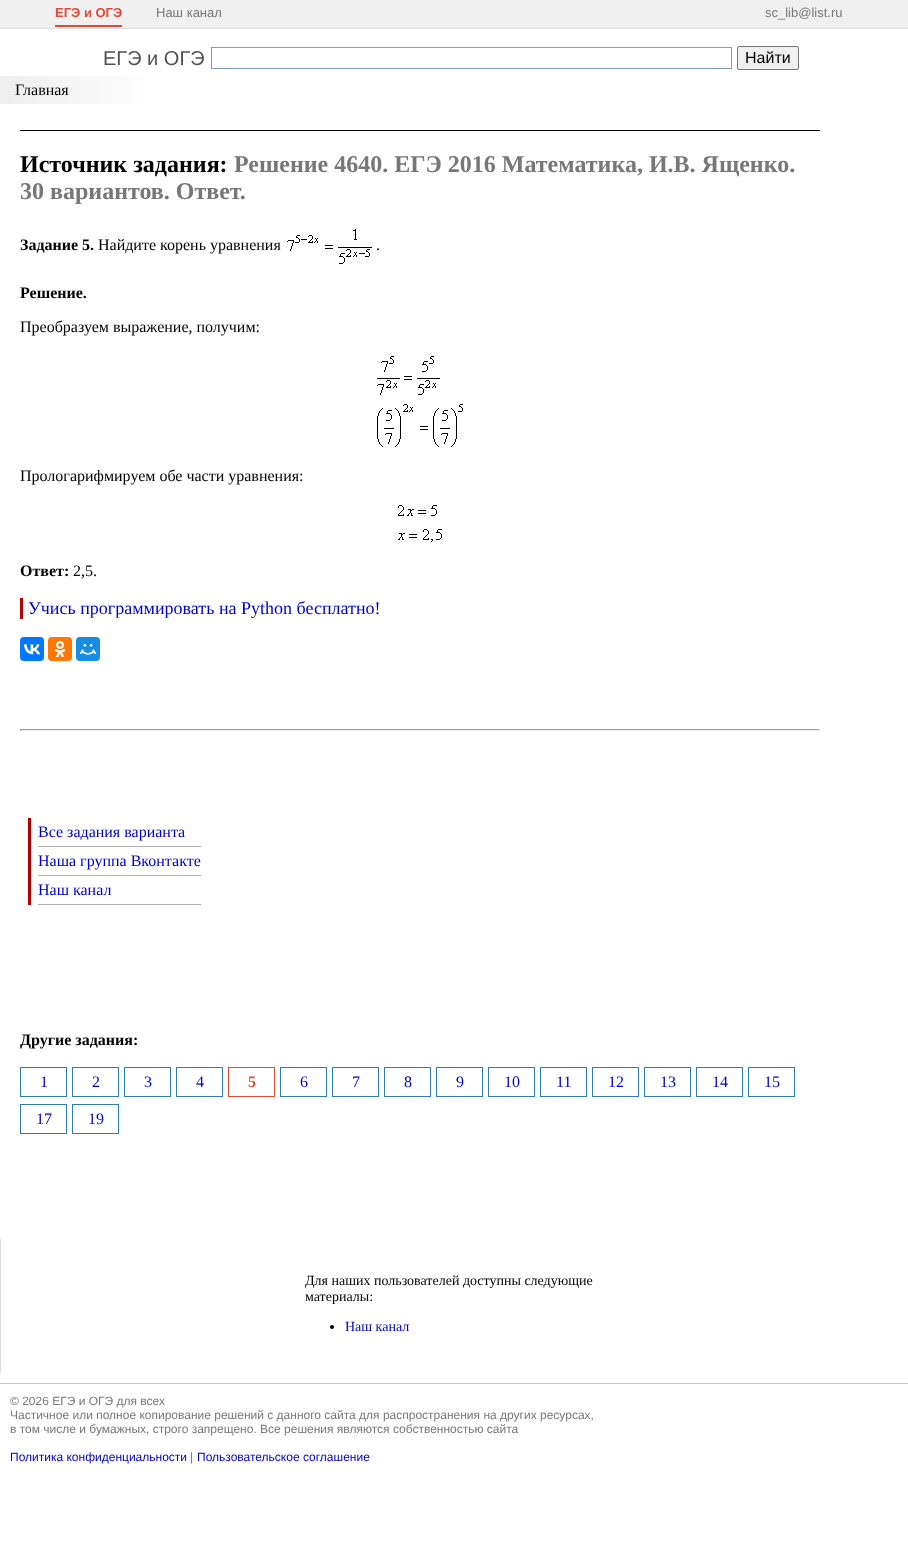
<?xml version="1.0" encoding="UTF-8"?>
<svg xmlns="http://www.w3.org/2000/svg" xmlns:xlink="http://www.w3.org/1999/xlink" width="908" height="1558">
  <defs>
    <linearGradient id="g1" gradientUnits="userSpaceOnUse" x1="0" y1="90" x2="169" y2="90"><stop offset="0" stop-color="#eeeeee" /><stop offset="1" stop-color="#ffffff" /></linearGradient>
    <clipPath id="clip1"><rect x="305" y="1239" width="300" height="130" /></clipPath>
  </defs>
  <rect width="100%" height="100%" fill="#ffffff" />
  <rect width="908" height="28" fill="#f0f0f0" />
  <rect y="28" width="908" height="1" fill="#e0e0e0" />
  <rect x="55" y="25" width="67" height="2" fill="#dd4b39" />
  <rect x="211.5" y="47.5" width="520" height="21" fill="none" stroke="#7f9db9" />
  <rect x="737.5" y="46.5" width="61" height="23" rx="1.5" fill="#efefef" stroke="#767676" />
  <rect y="76" width="144" height="28" fill="url(#g1)" />
  <rect x="20" y="130" width="800" height="1" fill="#000000" />
  <image x="287" y="229" width="85" height="35" xlink:href="image1.png" />
  <image x="377" y="356" width="86" height="91" xlink:href="image2.png" />
  <image x="398" y="505" width="44" height="37" xlink:href="image3.png" />
  <rect x="20" y="598" width="3" height="21" fill="#b00000" />
  <rect x="20" y="637" width="24" height="24" rx="4" fill="#0077ff" />
  <image x="24" y="644" width="16" height="11" xlink:href="image4.png" />
  <rect x="48" y="637" width="24" height="24" rx="4" fill="#ff7700" />
  <image x="54" y="641" width="12" height="16" xlink:href="image5.png" />
  <rect x="76" y="637" width="24" height="24" rx="4" fill="#168de2" />
  <image x="80" y="644" width="16" height="11" xlink:href="image6.png" />
  <rect x="20" y="729" width="800" height="1" fill="#9f9f9f" />
  <rect x="819" y="729" width="1" height="2" fill="#eeeeee" />
  <rect x="20" y="730" width="800" height="1" fill="#eeeeee" />
  <rect x="20" y="729" width="1" height="2" fill="#9f9f9f" />
  <rect x="28" y="818" width="3" height="87" fill="#b00000" />
  <rect x="38" y="846" width="163" height="1" fill="#b0b0b0" />
  <rect x="38" y="875" width="163" height="1" fill="#b0b0b0" />
  <rect x="38" y="904" width="163" height="1" fill="#b0b0b0" />
  <rect x="20.5" y="1067.5" width="46" height="29" fill="none" stroke="#2e7db0" />
  <rect x="72.5" y="1067.5" width="46" height="29" fill="none" stroke="#2e7db0" />
  <rect x="124.5" y="1067.5" width="46" height="29" fill="none" stroke="#2e7db0" />
  <rect x="176.5" y="1067.5" width="46" height="29" fill="none" stroke="#2e7db0" />
  <rect x="228.5" y="1067.5" width="46" height="29" fill="none" stroke="#dd4b39" />
  <rect x="280.5" y="1067.5" width="46" height="29" fill="none" stroke="#2e7db0" />
  <rect x="332.5" y="1067.5" width="46" height="29" fill="none" stroke="#2e7db0" />
  <rect x="384.5" y="1067.5" width="46" height="29" fill="none" stroke="#2e7db0" />
  <rect x="436.5" y="1067.5" width="46" height="29" fill="none" stroke="#2e7db0" />
  <rect x="488.5" y="1067.5" width="46" height="29" fill="none" stroke="#2e7db0" />
  <rect x="540.5" y="1067.5" width="46" height="29" fill="none" stroke="#2e7db0" />
  <rect x="592.5" y="1067.5" width="46" height="29" fill="none" stroke="#2e7db0" />
  <rect x="644.5" y="1067.5" width="46" height="29" fill="none" stroke="#2e7db0" />
  <rect x="696.5" y="1067.5" width="46" height="29" fill="none" stroke="#2e7db0" />
  <rect x="748.5" y="1067.5" width="46" height="29" fill="none" stroke="#2e7db0" />
  <rect x="20.5" y="1104.5" width="46" height="29" fill="none" stroke="#2e7db0" />
  <rect x="72.5" y="1104.5" width="46" height="29" fill="none" stroke="#2e7db0" />
  <rect y="1239" width="1" height="134" fill="#e0e0e0" />
  <circle cx="332" cy="1327" r="2" fill="#000000" />
  <rect y="1383" width="908" height="1" fill="#c5c8d0" />
  <text x="55" y="17" style="font-family: Liberation Sans; font-size: 13px; font-weight: bold; fill: #dd4b39">ЕГЭ и ОГЭ</text>
  <text x="156" y="17" style="font-family: Liberation Sans; font-size: 13px; fill: #777777">Наш канал</text>
  <text x="765" y="17" style="font-family: Liberation Sans; font-size: 13px; fill: #777777">sc_lib@list.ru</text>
  <text x="103" y="65" style="font-family: Liberation Sans; font-size: 20px; fill: #505050">ЕГЭ и ОГЭ</text>
  <text x="745" y="63" style="font-family: Liberation Sans; font-size: 16px; fill: #000000">Найти</text>
  <text x="15" y="95" style="font-family: Liberation Serif; font-size: 16px; fill: #000000">Главная</text>
  <text x="20" y="172" style="font-family: Liberation Serif; font-size: 24px; font-weight: bold; fill: #000000">Источник задания:</text>
  <text x="234" y="172" style="font-family: Liberation Serif; font-size: 24px; font-weight: bold; fill: #777777">Решение 4640. ЕГЭ 2016 Математика, И.В. Ященко.</text>
  <text x="20" y="199" style="font-family: Liberation Serif; font-size: 24px; font-weight: bold; fill: #777777">30 вариантов. Ответ.</text>
  <text x="20" y="250" style="font-family: Liberation Serif; font-size: 16px; font-weight: bold; fill: #000000">Задание 5.</text>
  <text x="98" y="250" style="font-family: Liberation Serif; font-size: 16px; fill: #000000">Найдите корень уравнения</text>
  <text x="376" y="250" style="font-family: Liberation Serif; font-size: 16px; fill: #000000">.</text>
  <text x="20" y="298" style="font-family: Liberation Serif; font-size: 16px; font-weight: bold; fill: #000000">Решение.</text>
  <text x="20" y="332" style="font-family: Liberation Serif; font-size: 16px; fill: #000000">Преобразуем выражение, получим:</text>
  <text x="20" y="481" style="font-family: Liberation Serif; font-size: 16px; fill: #000000">Прологарифмируем обе части уравнения:</text>
  <text x="20" y="576" style="font-family: Liberation Serif; font-size: 16px; font-weight: bold; fill: #000000">Ответ:</text>
  <text x="73" y="576" style="font-family: Liberation Serif; font-size: 16px; fill: #000000">2,5.</text>
  <text x="28" y="614" style="font-family: Liberation Serif; font-size: 18px; fill: #0000cc">Учись программировать на Python бесплатно!</text>
  <text x="38" y="837" style="font-family: Liberation Serif; font-size: 16px; fill: #0000cc">Все задания варианта</text>
  <text x="38" y="866" style="font-family: Liberation Serif; font-size: 16px; fill: #0000cc">Наша группа Вконтакте</text>
  <text x="38" y="895" style="font-family: Liberation Serif; font-size: 16px; fill: #0000cc">Наш канал</text>
  <text x="20" y="1045" style="font-family: Liberation Serif; font-size: 16px; font-weight: bold; fill: #000000">Другие задания:</text>
  <text x="40" y="1087" style="font-family: Liberation Serif; font-size: 16px; fill: #0000cc">1</text>
  <text x="92" y="1087" style="font-family: Liberation Serif; font-size: 16px; fill: #0000cc">2</text>
  <text x="144" y="1087" style="font-family: Liberation Serif; font-size: 16px; fill: #0000cc">3</text>
  <text x="196" y="1087" style="font-family: Liberation Serif; font-size: 16px; fill: #0000cc">4</text>
  <text x="248" y="1087" style="font-family: Liberation Serif; font-size: 16px; font-weight: bold; fill: #dd4b39">5</text>
  <text x="300" y="1087" style="font-family: Liberation Serif; font-size: 16px; fill: #0000cc">6</text>
  <text x="352" y="1087" style="font-family: Liberation Serif; font-size: 16px; fill: #0000cc">7</text>
  <text x="404" y="1087" style="font-family: Liberation Serif; font-size: 16px; fill: #0000cc">8</text>
  <text x="456" y="1087" style="font-family: Liberation Serif; font-size: 16px; fill: #0000cc">9</text>
  <text x="504" y="1087" style="font-family: Liberation Serif; font-size: 16px; fill: #0000cc">10</text>
  <text x="556" y="1087" style="font-family: Liberation Serif; font-size: 16px; fill: #0000cc">11</text>
  <text x="608" y="1087" style="font-family: Liberation Serif; font-size: 16px; fill: #0000cc">12</text>
  <text x="660" y="1087" style="font-family: Liberation Serif; font-size: 16px; fill: #0000cc">13</text>
  <text x="712" y="1087" style="font-family: Liberation Serif; font-size: 16px; fill: #0000cc">14</text>
  <text x="764" y="1087" style="font-family: Liberation Serif; font-size: 16px; fill: #0000cc">15</text>
  <text x="36" y="1124" style="font-family: Liberation Serif; font-size: 16px; fill: #0000cc">17</text>
  <text x="88" y="1124" style="font-family: Liberation Serif; font-size: 16px; fill: #0000cc">19</text>
  <g clip-path="url(#clip1)">
    <text x="305" y="1285" style="font-family: Liberation Serif; font-size: 14px; fill: #000000">Для наших пользователей доступны следующие</text>
  </g>
  <text x="305" y="1301" style="font-family: Liberation Serif; font-size: 14px; fill: #000000">материалы:</text>
  <text x="345" y="1331" style="font-family: Liberation Serif; font-size: 14px; fill: #0000cc">Наш канал</text>
  <text x="10" y="1405" style="font-family: Liberation Sans; font-size: 12px; fill: #777777">© 2026 ЕГЭ и ОГЭ для всех</text>
  <text x="10" y="1419" style="font-family: Liberation Sans; font-size: 12px; fill: #777777">Частичное или полное копирование решений с данного сайта для распространения на других ресурсах,</text>
  <text x="10" y="1433" style="font-family: Liberation Sans; font-size: 12px; fill: #777777">в том числе и бумажных, строго запрещено. Все решения являются собственностью сайта</text>
  <text x="10" y="1461" style="font-family: Liberation Sans; font-size: 12px; fill: #0000cc">Политика конфиденциальности</text>
  <text x="190" y="1461" style="font-family: Liberation Sans; font-size: 12px; fill: #777777">|</text>
  <text x="197" y="1461" style="font-family: Liberation Sans; font-size: 12px; fill: #0000cc">Пользовательское соглашение</text>
</svg>
